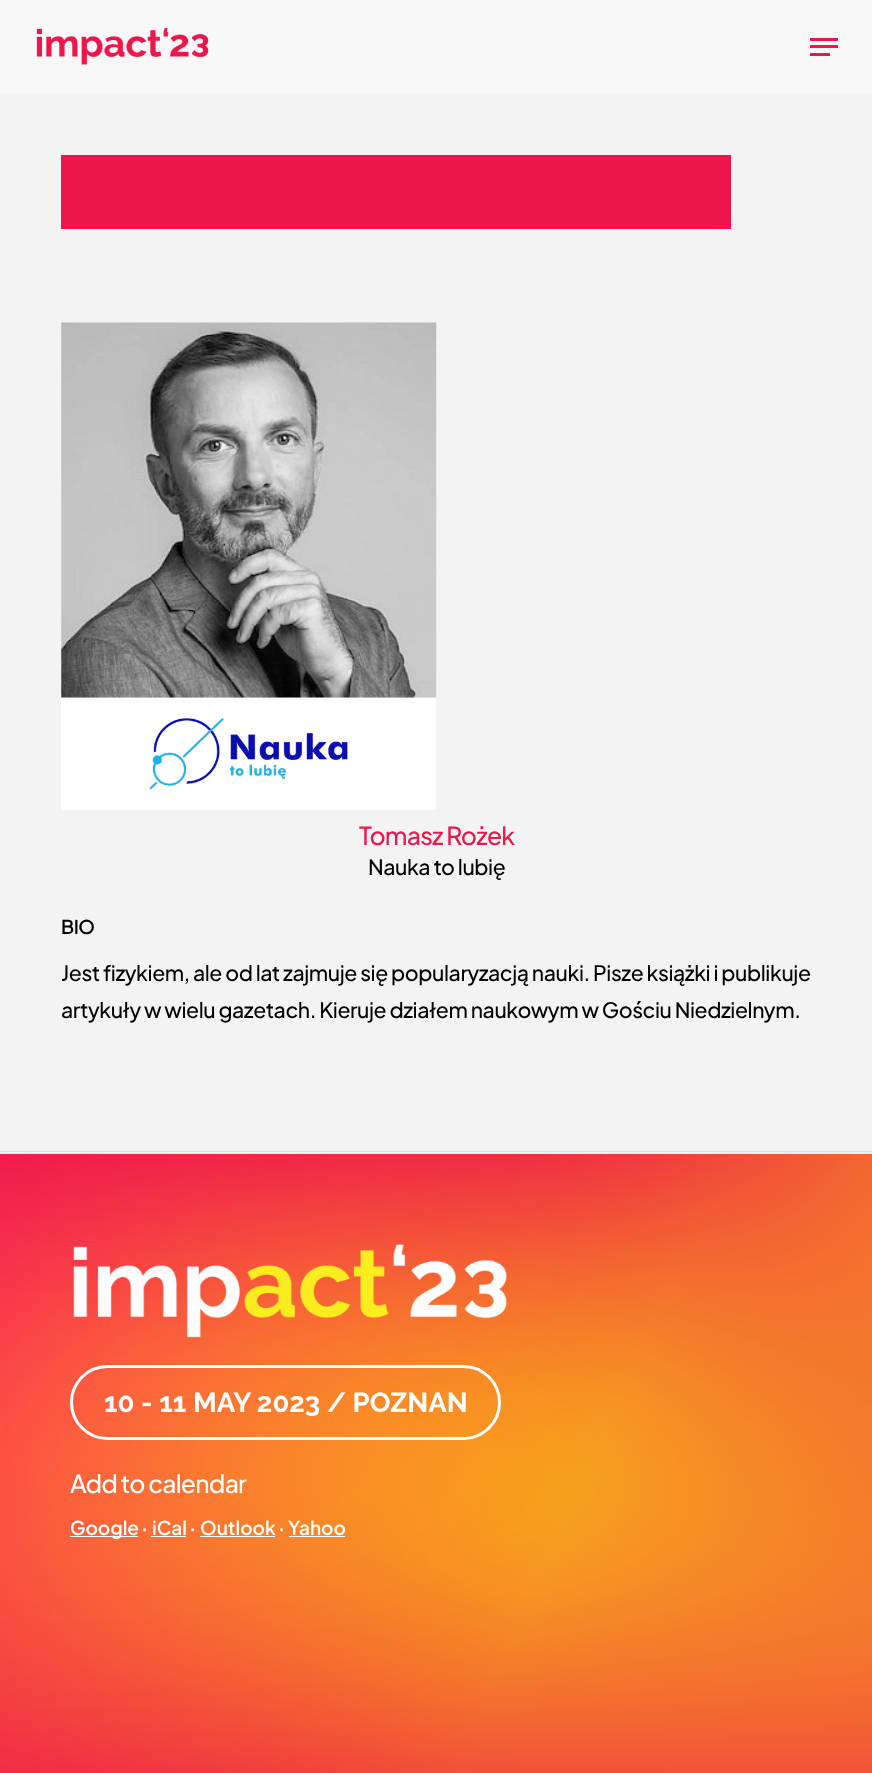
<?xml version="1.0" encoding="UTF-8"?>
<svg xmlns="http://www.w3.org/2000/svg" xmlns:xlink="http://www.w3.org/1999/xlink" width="872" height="1773">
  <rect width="100%" height="100%" fill="#f3f3f3" />
  <rect width="872" height="93" fill="#f8f8f8" />
  <image x="36" y="28" width="173" height="37" xlink:href="image1.png" />
  <rect x="810" y="38" width="28" height="3" fill="#ed174c" />
  <rect x="810" y="53" width="20" height="3" fill="#ed174c" />
  <rect x="810" y="45" width="28" height="3" fill="#ed174c" />
  <rect x="61" y="155" width="670" height="74" fill="#ed174c" />
  <image x="61" y="322" width="376" height="376" xlink:href="image2.png" />
  <rect x="61" y="698" width="375" height="112" fill="#ffffff" />
  <image x="149" y="718" width="199" height="72" xlink:href="image3.png" />
  <rect y="1151" width="872" height="1" fill="#dbdbdb" />
  <rect y="1154" width="872" height="619" fill="#ed174c" />
  <image x="0" y="1153" width="872" height="620" xlink:href="image4.png" />
  <image x="73" y="1244" width="434" height="94" xlink:href="image5.png" />
  <rect x="71.5" y="1366.5" width="428" height="72" rx="36" fill="none" stroke="#ffffff" stroke-width="3" />
  <rect x="70" y="1536" width="68" height="1" fill="#ffffff" />
  <rect x="151" y="1536" width="35" height="1" fill="#ffffff" />
  <rect x="200" y="1536" width="75" height="1" fill="#ffffff" />
  <rect x="289" y="1536" width="56" height="1" fill="#ffffff" />
  <text x="359" y="845" style="font-family: Plus Jakarta Sans; font-size: 24.75px; font-weight: 500; letter-spacing: -0.75px; fill: #ed174c">Tomasz Rożek</text>
  <text x="368" y="875" style="font-family: Plus Jakarta Sans; font-size: 21.25px; font-weight: 500; letter-spacing: -0.43px; fill: #000000">Nauka to lubię</text>
  <text x="61" y="934" style="font-family: Plus Jakarta Sans; font-size: 19px; font-weight: 600; letter-spacing: -0.5px; fill: #000000">BIO</text>
  <text x="61" y="981" style="font-family: Plus Jakarta Sans; font-size: 21.25px; font-weight: 500; letter-spacing: -0.43px; fill: #000000">Jest fizykiem, ale od lat zajmuje się popularyzacją nauki. Pisze książki i publikuje</text>
  <text x="61" y="1018" style="font-family: Plus Jakarta Sans; font-size: 21.25px; font-weight: 500; letter-spacing: -0.43px; fill: #000000">artykuły w wielu gazetach. Kieruje działem naukowym w Gościu Niedzielnym.</text>
  <text x="104" y="1412" style="font-family: Raleway; font-size: 27.5px; font-weight: 100; fill: #ffffff">10 - 11 MAY 2023 / POZNAN</text>
  <text x="70" y="1493" style="font-family: Plus Jakarta Sans; font-size: 24.75px; font-weight: 500; letter-spacing: -0.75px; fill: #ffffff">Add to calendar</text>
  <text x="70" y="1535" style="font-family: Plus Jakarta Sans; font-size: 19px; font-weight: 600; fill: #ffffff">Google</text>
  <text x="141" y="1535" style="font-family: Plus Jakarta Sans; font-size: 19px; font-weight: bold; fill: #ffffff">·</text>
  <text x="152" y="1535" style="font-family: Plus Jakarta Sans; font-size: 19px; font-weight: 600; fill: #ffffff">iCal</text>
  <text x="189" y="1535" style="font-family: Plus Jakarta Sans; font-size: 19px; font-weight: bold; fill: #ffffff">·</text>
  <text x="200" y="1535" style="font-family: Plus Jakarta Sans; font-size: 19px; font-weight: 600; fill: #ffffff">Outlook</text>
  <text x="278" y="1535" style="font-family: Plus Jakarta Sans; font-size: 19px; font-weight: bold; fill: #ffffff">·</text>
  <text x="288" y="1535" style="font-family: Plus Jakarta Sans; font-size: 19px; font-weight: 600; fill: #ffffff">Yahoo</text>
</svg>
